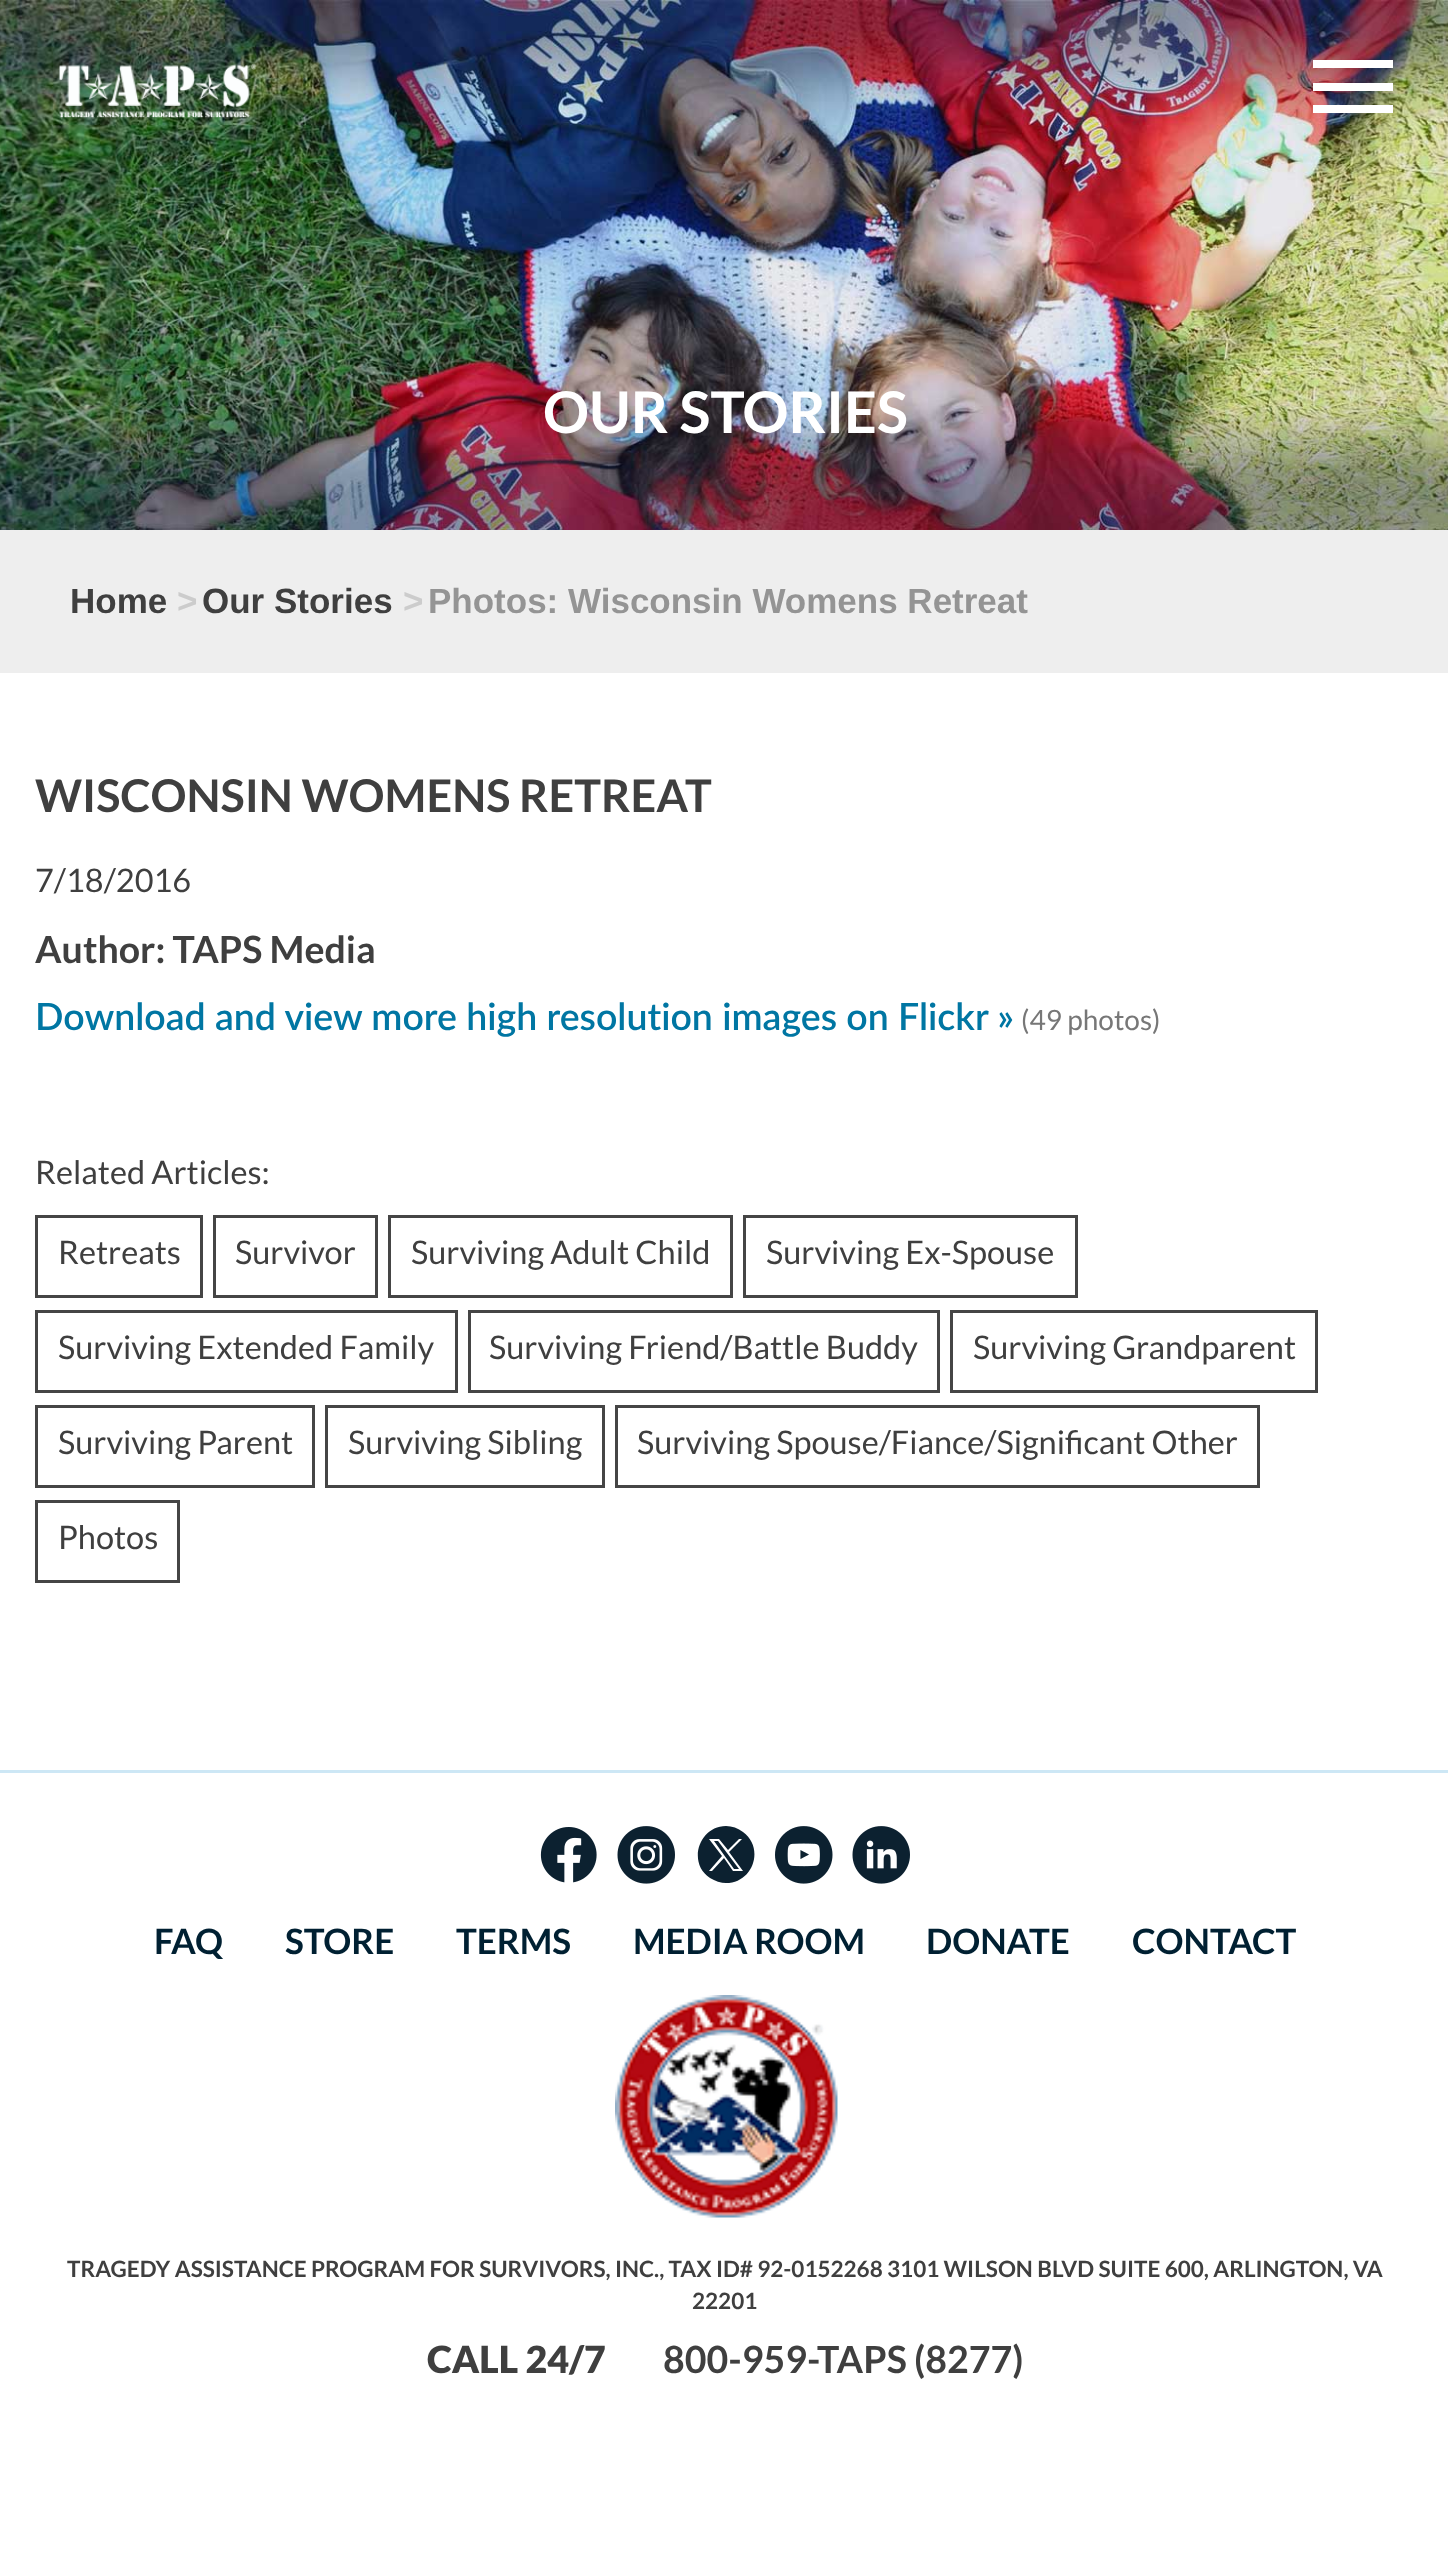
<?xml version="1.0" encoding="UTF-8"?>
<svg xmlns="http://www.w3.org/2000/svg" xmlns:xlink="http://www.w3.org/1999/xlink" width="1448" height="2551">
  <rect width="100%" height="100%" fill="#ffffff" />
  <image x="0" y="0" width="1448" height="530" xlink:href="image2.png" />
  <image x="59" y="64" width="197" height="54" xlink:href="image1.png" />
  <rect x="1313" y="60" width="80" height="8" fill="#ffffff" />
  <rect x="1313" y="83" width="80" height="8" fill="#ffffff" />
  <rect x="1313" y="105" width="80" height="8" fill="#ffffff" />
  <rect y="530" width="1448" height="143" fill="#eeeeee" />
  <rect x="36.5" y="1216.5" width="165" height="80" fill="none" stroke="#454545" stroke-width="3" />
  <rect x="214.5" y="1216.5" width="162" height="80" fill="none" stroke="#454545" stroke-width="3" />
  <rect x="389.5" y="1216.5" width="342" height="80" fill="none" stroke="#454545" stroke-width="3" />
  <rect x="744.5" y="1216.5" width="332" height="80" fill="none" stroke="#454545" stroke-width="3" />
  <rect x="36.5" y="1311.5" width="420" height="80" fill="none" stroke="#454545" stroke-width="3" />
  <rect x="469.5" y="1311.5" width="469" height="80" fill="none" stroke="#454545" stroke-width="3" />
  <rect x="951.5" y="1311.5" width="365" height="80" fill="none" stroke="#454545" stroke-width="3" />
  <rect x="36.5" y="1406.5" width="277" height="80" fill="none" stroke="#454545" stroke-width="3" />
  <rect x="326.5" y="1406.5" width="277" height="80" fill="none" stroke="#454545" stroke-width="3" />
  <rect x="616.5" y="1406.5" width="642" height="80" fill="none" stroke="#454545" stroke-width="3" />
  <rect x="36.5" y="1501.5" width="142" height="80" fill="none" stroke="#454545" stroke-width="3" />
  <rect y="1770" width="1448" height="3" fill="#cde7f5" />
  <image x="540" y="1827" width="57" height="56" xlink:href="image3.png" />
  <image x="617" y="1826" width="58" height="58" xlink:href="image4.png" />
  <path d="M 714 1841 l 20 28 h 5 l -21 -28 z m 12 -15 c -27 0 -39 37 -16 52 c 5 3 11 5 16 5 c 27 0 39 -35 17 -51 c -5 -4 -11 -6 -17 -6 z m 7 45 l -9 -13 l -12 13 h -3 l 13 -15 l -13 -17 h 10 l 9 11 l 11 -11 h 3 l -13 13 l 14 19 z" fill="#0c2130" />
  <image x="775" y="1826" width="58" height="58" xlink:href="image5.png" />
  <image x="852" y="1826" width="58" height="58" xlink:href="image6.png" />
  <image x="615" y="1995" width="223" height="223" xlink:href="image7.png" />
  <text x="543" y="433" style="font-family: Lato; font-size: 57.5px; font-weight: bold; fill: #ffffff">OUR STORIES</text>
  <text x="70" y="613" style="font-family: Liberation Sans; font-size: 35px; font-weight: bold; fill: #3f3f3f">Home</text>
  <text x="177" y="613" style="font-family: Liberation Sans; font-size: 35px; font-weight: bold; fill: #cccccc">&gt;</text>
  <text x="202" y="613" style="font-family: Liberation Sans; font-size: 35px; font-weight: bold; fill: #3f3f3f">Our Stories</text>
  <text x="403" y="613" style="font-family: Liberation Sans; font-size: 35px; font-weight: bold; fill: #cccccc">&gt;</text>
  <text x="428" y="613" style="font-family: Liberation Sans; font-size: 35px; font-weight: bold; fill: #949494">Photos: Wisconsin Womens Retreat</text>
  <text x="35" y="812" style="font-family: Lato; font-size: 45px; font-weight: bold; fill: #3f3f3f">WISCONSIN WOMENS RETREAT</text>
  <text x="35" y="892" style="font-family: Lato; font-size: 32.5px; fill: #3f3f3f">7/18/2016</text>
  <text x="35" y="963" style="font-family: Lato; font-size: 37.5px; font-weight: bold; fill: #3f3f3f">Author: TAPS Media</text>
  <text x="35" y="1030" style="font-family: Lato; font-size: 37.5px; font-weight: 600; fill: #0076a3">Download and view more high resolution images on Flickr »</text>
  <text x="1021" y="1030" style="font-family: Lato; font-size: 28px; fill: #777777">(49 photos)</text>
  <text x="35" y="1184" style="font-family: Lato; font-size: 32.5px; fill: #3f3f3f">Related Articles:</text>
  <text x="58" y="1264" style="font-family: Lato; font-size: 32.5px; fill: #3f3f3f">Retreats</text>
  <text x="235" y="1264" style="font-family: Lato; font-size: 32.5px; fill: #3f3f3f">Survivor</text>
  <text x="411" y="1264" style="font-family: Lato; font-size: 32.5px; fill: #3f3f3f">Surviving Adult Child</text>
  <text x="766" y="1264" style="font-family: Lato; font-size: 32.5px; fill: #3f3f3f">Surviving Ex-Spouse</text>
  <text x="58" y="1359" style="font-family: Lato; font-size: 32.5px; fill: #3f3f3f">Surviving Extended Family</text>
  <text x="489" y="1359" style="font-family: Lato; font-size: 32.5px; fill: #3f3f3f">Surviving Friend/Battle Buddy</text>
  <text x="973" y="1359" style="font-family: Lato; font-size: 32.5px; fill: #3f3f3f">Surviving Grandparent</text>
  <text x="58" y="1454" style="font-family: Lato; font-size: 32.5px; fill: #3f3f3f">Surviving Parent</text>
  <text x="348" y="1454" style="font-family: Lato; font-size: 32.5px; fill: #3f3f3f">Surviving Sibling</text>
  <text x="637" y="1454" style="font-family: Lato; font-size: 32.5px; fill: #3f3f3f">Surviving Spouse/Fiance/Significant Other</text>
  <text x="58" y="1549" style="font-family: Lato; font-size: 32.5px; fill: #3f3f3f">Photos</text>
  <text x="154" y="1954" style="font-family: Lato; font-size: 35px; font-weight: bold; fill: #002032">FAQ</text>
  <text x="285" y="1954" style="font-family: Lato; font-size: 35px; font-weight: bold; fill: #002032">STORE</text>
  <text x="456" y="1954" style="font-family: Lato; font-size: 35px; font-weight: bold; fill: #002032">TERMS</text>
  <text x="633" y="1954" style="font-family: Lato; font-size: 35px; font-weight: bold; fill: #002032">MEDIA ROOM</text>
  <text x="926" y="1954" style="font-family: Lato; font-size: 35px; font-weight: bold; fill: #002032">DONATE</text>
  <text x="1132" y="1954" style="font-family: Lato; font-size: 35px; font-weight: bold; fill: #002032">CONTACT</text>
  <text x="67" y="2277" style="font-family: Lato; font-size: 22.5px; font-weight: bold; fill: #3f3f3f">TRAGEDY ASSISTANCE PROGRAM FOR SURVIVORS, INC., TAX ID# 92-0152268 3101 WILSON BLVD SUITE 600, ARLINGTON, VA</text>
  <text x="692" y="2309" style="font-family: Lato; font-size: 22.5px; font-weight: bold; fill: #3f3f3f">22201</text>
  <text x="427" y="2373" style="font-family: Lato; font-size: 37.5px; font-weight: 900; fill: #3f3f3f">CALL 24/7</text>
  <text x="663" y="2373" style="font-family: Lato; font-size: 37.5px; font-weight: bold; fill: #3f3f3f">800-959-TAPS (8277)</text>
</svg>
